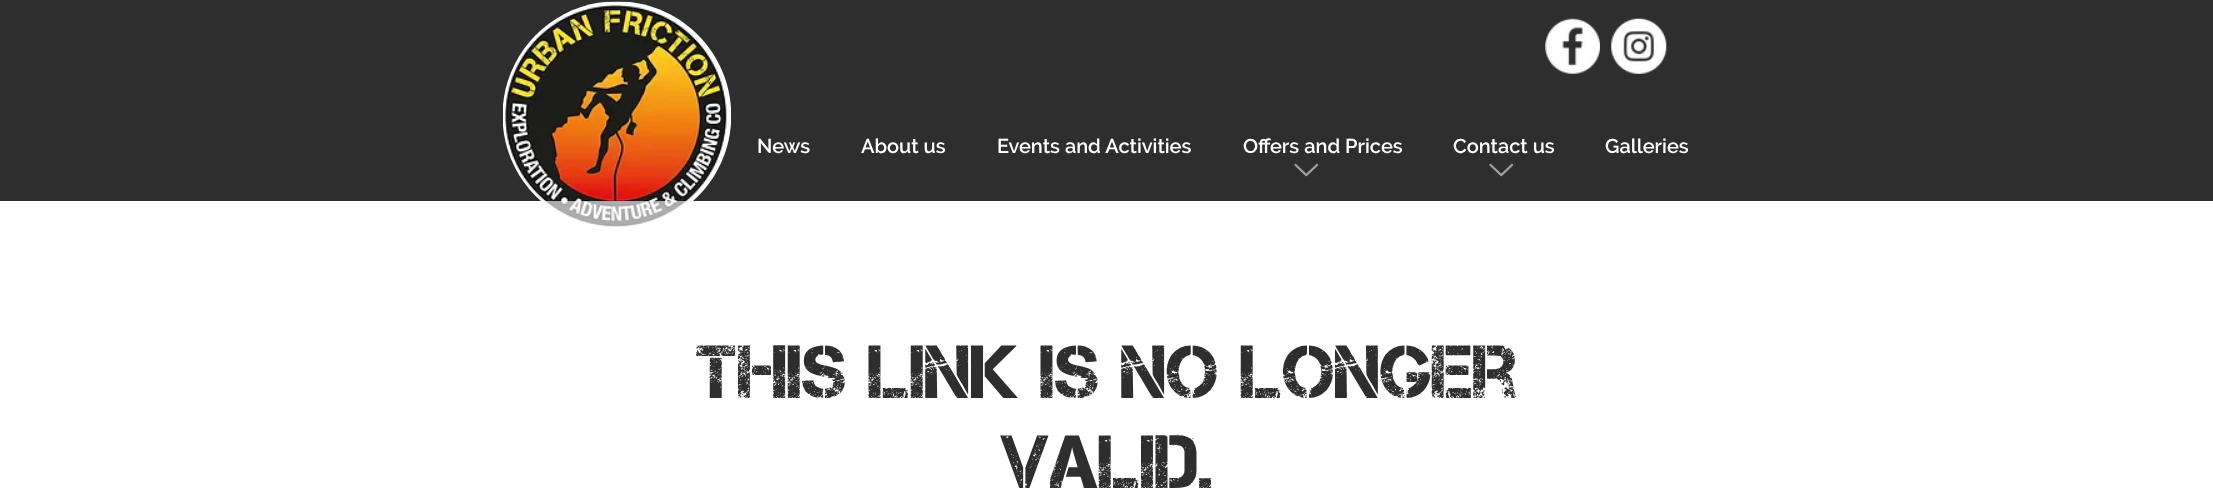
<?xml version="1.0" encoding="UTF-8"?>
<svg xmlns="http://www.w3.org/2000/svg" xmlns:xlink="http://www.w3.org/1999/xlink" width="2213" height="500">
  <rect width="100%" height="100%" fill="#ffffff" />
  <rect width="2213" height="201" fill="#2f2e2e" />
  <image x="503" y="1" width="228" height="226" xlink:href="image1.png" />
  <image x="1545" y="18" width="55" height="56" xlink:href="image2.png" />
  <image x="1611" y="18" width="56" height="56" xlink:href="image3.png" />
  <image x="1294" y="163" width="25" height="14" xlink:href="image4.png" />
  <image x="1489" y="163" width="25" height="14" xlink:href="image4.png" />
  <rect x="543" y="201" width="145" height="26" fill="#ffffff" fill-opacity="0.64" />
  <text x="757" y="153" style="font-family: Raleway; font-size: 20px; font-weight: 600; fill: #ffffff">News</text>
  <text x="861" y="153" style="font-family: Raleway; font-size: 20px; font-weight: 600; fill: #ffffff">About us</text>
  <text x="997" y="153" style="font-family: Raleway; font-size: 20px; font-weight: 600; fill: #ffffff">Events and Activities</text>
  <text x="1243" y="153" style="font-family: Raleway; font-size: 20px; font-weight: 600; fill: #ffffff">Offers and Prices</text>
  <text x="1453" y="153" style="font-family: Raleway; font-size: 20px; font-weight: 600; fill: #ffffff">Contact us</text>
  <text x="1605" y="153" style="font-family: Raleway; font-size: 20px; font-weight: 600; fill: #ffffff">Galleries</text>
  <text x="696" y="398" style="font-family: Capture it; font-size: 75px; fill: #2f2e2e">This link is no longer</text>
  <text x="1000" y="488" style="font-family: Capture it; font-size: 75px; fill: #2f2e2e">valid.</text>
</svg>
